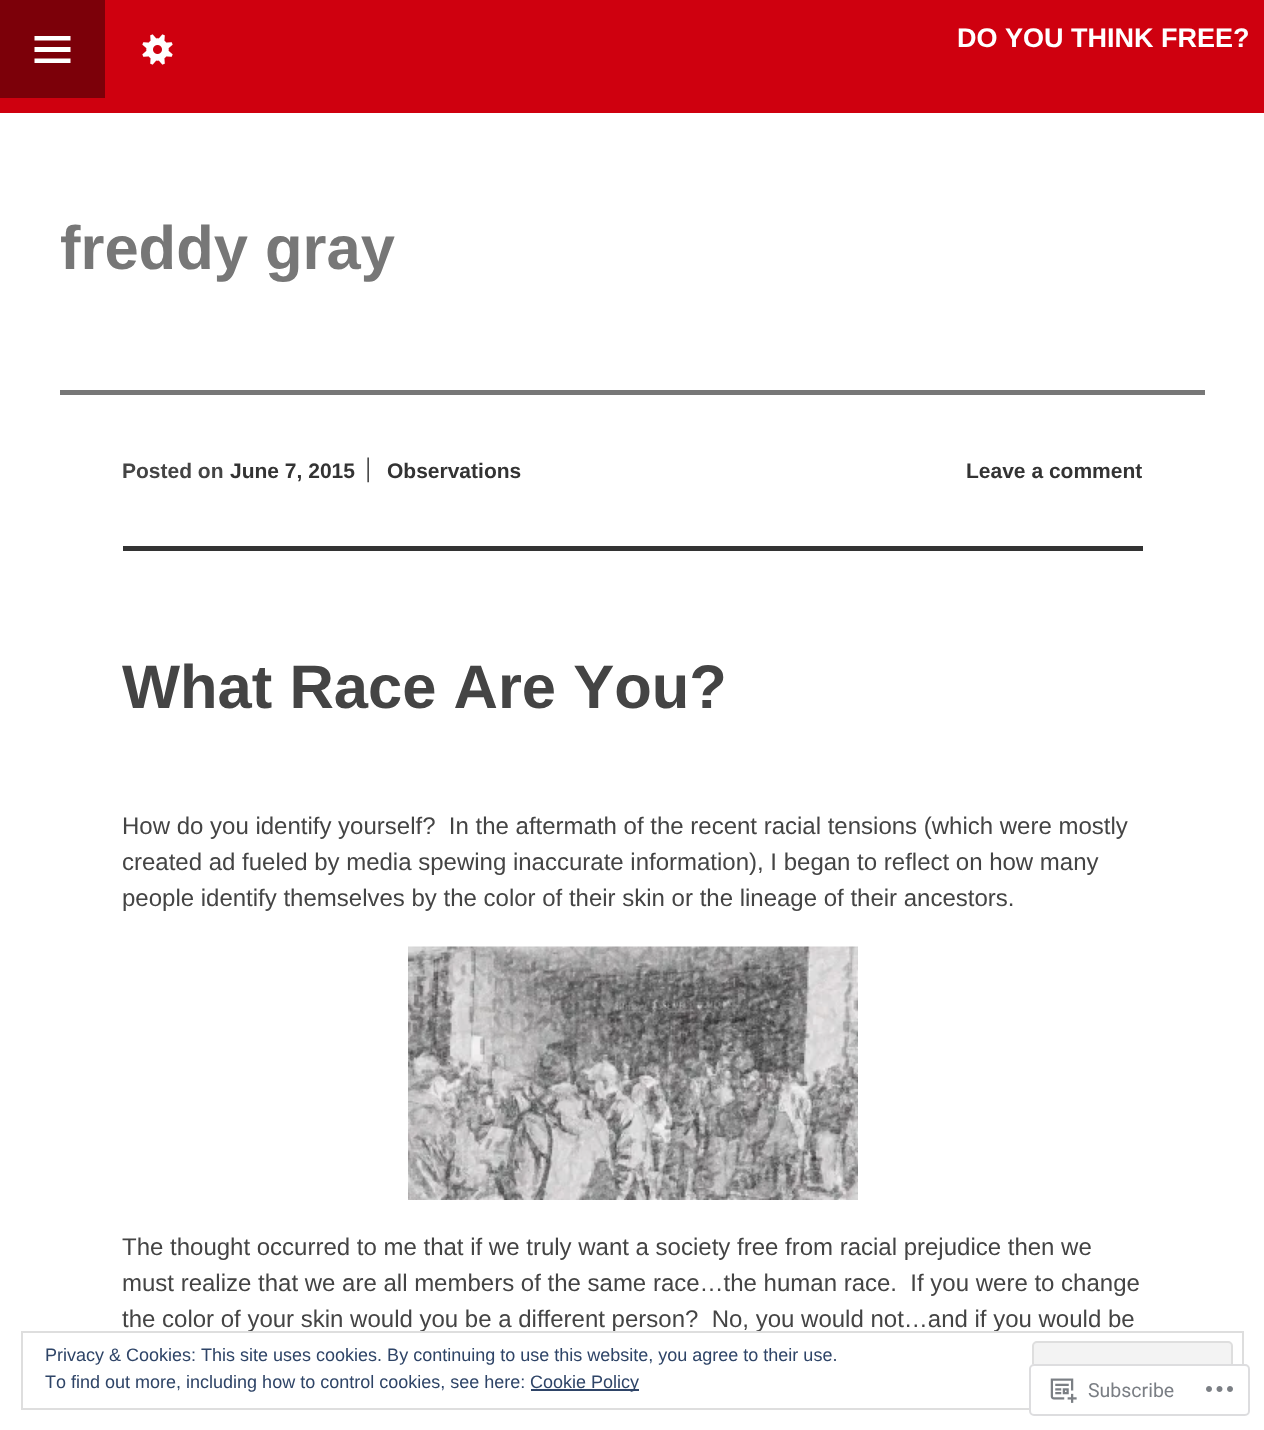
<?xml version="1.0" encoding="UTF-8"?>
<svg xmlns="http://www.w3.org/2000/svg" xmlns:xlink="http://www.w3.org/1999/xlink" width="1264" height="1430">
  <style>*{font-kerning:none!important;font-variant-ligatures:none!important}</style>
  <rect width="100%" height="100%" fill="#ffffff" />
  <rect width="1264" height="113" fill="#cf000f" />
  <rect width="105" height="98" fill="#7c0009" />
  <path d="M 34.5 63 v -4.5 h 36 v 4.5 z m 0 -27 h 36 v 4.5 h -36 z m 0 16 v -5 h 36 v 5 z" fill="#ffffff" />
  <image x="142" y="34" width="31" height="31" xlink:href="image1.png" />
  <rect x="60" y="390" width="1145" height="5" fill="#777777" />
  <rect x="123" y="546" width="1020" height="5" fill="#333333" />
  <image x="408" y="946" width="450" height="254" xlink:href="image2.png" />
  <text x="957" y="47" style="font-family: Arimo; font-size: 27px; font-weight: bold; fill: #ffffff">DO YOU THINK FREE?</text>
  <text x="60" y="269" style="font-family: Arimo; font-size: 61.5px; font-weight: bold; fill: #777777">freddy gray</text>
  <text x="122" y="478" style="font-family: Arimo; font-size: 21px; font-weight: bold; fill: #444444">Posted on</text>
  <text x="230" y="478" style="font-family: Arimo; font-size: 21px; font-weight: bold; fill: #333333">June 7, 2015</text>
  <text x="374" y="478" style="font-family: Arimo; font-size: 21px; font-weight: bold; direction: rtl; fill: #444444">׀</text>
  <text x="387" y="478" style="font-family: Arimo; font-size: 21px; font-weight: bold; fill: #333333">Observations</text>
  <text x="966" y="478" style="font-family: Arimo; font-size: 21px; font-weight: bold; fill: #333333">Leave a comment</text>
  <text x="122" y="708" style="font-family: Arimo; font-size: 61.5px; font-weight: bold; fill: #444444">What Race Are You?</text>
  <text x="122" y="834" style="font-family: Arimo; font-size: 24px; fill: #444444" xml:space="preserve">How do you identify yourself?  In the aftermath of the recent racial tensions (which were mostly</text>
  <text x="122" y="870" style="font-family: Arimo; font-size: 24px; fill: #444444">created ad fueled by media spewing inaccurate information), I began to reflect on how many</text>
  <text x="122" y="906" style="font-family: Arimo; font-size: 24px; fill: #444444">people identify themselves by the color of their skin or the lineage of their ancestors.</text>
  <text x="122" y="1255" style="font-family: Arimo; font-size: 24px; fill: #444444">The thought occurred to me that if we truly want a society free from racial prejudice then we</text>
  <text x="122" y="1291" style="font-family: Arimo; font-size: 24px; fill: #444444" xml:space="preserve">must realize that we are all members of the same race…the human race.  If you were to change</text>
  <text x="122" y="1327" style="font-family: Arimo; font-size: 24px; fill: #444444" xml:space="preserve">the color of your skin would you be a different person?  No, you would not…and if you would be</text>
  <rect x="22" y="1332" width="1221" height="77" fill="none" stroke="#dedede" stroke-width="2" />
  <text x="45" y="1361" style="font-family: Arimo; font-size: 18px; fill: #2e4467">Privacy &amp; Cookies: This site uses cookies. By continuing to use this website, you agree to their use.</text>
  <rect x="1033" y="1342" width="199" height="57" rx="4" fill="#f3f3f3" stroke="#dedede" stroke-width="2" />
  <text x="45" y="1388" style="font-family: Arimo; font-size: 18px; fill: #2e4467">To find out more, including how to control cookies, see here:</text>
  <rect x="531" y="1389" width="108" height="2" fill="#2e4467" />
  <text x="530" y="1388" style="font-family: Arimo; font-size: 18px; fill: #2e4467">Cookie Policy</text>
  <rect x="1029" y="1364" width="221" height="52" rx="5" fill="#ffffff" fill-opacity="0.98" />
  <rect x="1030" y="1365" width="219" height="50" rx="4" fill="none" stroke="#dcdcde" stroke-opacity="0.98" stroke-width="2" />
  <image x="1050" y="1378" width="27" height="25" xlink:href="image3.png" />
  <text x="1088" y="1397" style="font-family: Roboto; font-size: 19.5px; fill: #7a7e84">Subscribe</text>
  <image x="1206" y="1386" width="27" height="6" xlink:href="image4.png" />
</svg>
